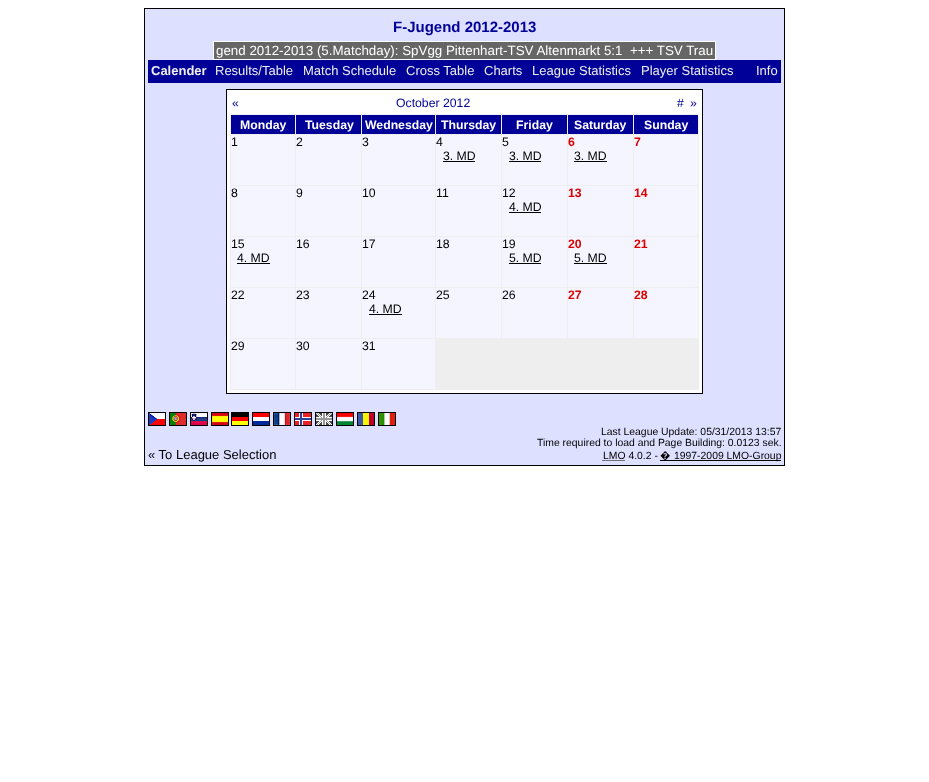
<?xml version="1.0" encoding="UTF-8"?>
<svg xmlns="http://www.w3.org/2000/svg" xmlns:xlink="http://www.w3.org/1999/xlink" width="929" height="782">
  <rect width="100%" height="100%" fill="#ffffff" />
  <rect x="144.5" y="8.5" width="640" height="457" fill="#dde0ff" stroke="#000000" />
  <rect x="213.5" y="41.5" width="502" height="18" fill="#666666" stroke="#ffffff" />
  <rect x="148" y="60" width="633" height="23" fill="#000099" />
  <rect x="226.5" y="89.5" width="476" height="304" fill="#ffffff" stroke="#000000" />
  <rect x="231" y="135" width="467" height="254" fill="#f5f5ff" />
  <rect x="231" y="115" width="64" height="19" fill="#000099" />
  <rect x="633" y="114" width="66" height="1" fill="#eeeeee" />
  <rect x="633" y="134" width="66" height="1" fill="#eeeeee" />
  <rect x="633" y="185" width="66" height="1" fill="#eeeeee" />
  <rect x="633" y="236" width="66" height="1" fill="#eeeeee" />
  <rect x="633" y="287" width="66" height="1" fill="#eeeeee" />
  <rect x="361" y="338" width="338" height="1" fill="#eeeeee" />
  <rect x="633" y="287" width="1" height="52" fill="#eeeeee" />
  <rect x="567" y="287" width="67" height="1" fill="#eeeeee" />
  <rect x="633" y="236" width="1" height="52" fill="#eeeeee" />
  <rect x="567" y="236" width="67" height="1" fill="#eeeeee" />
  <rect x="633" y="185" width="1" height="52" fill="#eeeeee" />
  <rect x="567" y="185" width="67" height="1" fill="#eeeeee" />
  <rect x="633" y="134" width="1" height="52" fill="#eeeeee" />
  <rect x="567" y="134" width="67" height="1" fill="#eeeeee" />
  <rect x="633" y="114" width="1" height="21" fill="#eeeeee" />
  <rect x="567" y="114" width="67" height="1" fill="#eeeeee" />
  <rect x="567" y="287" width="1" height="52" fill="#eeeeee" />
  <rect x="501" y="287" width="67" height="1" fill="#eeeeee" />
  <rect x="567" y="236" width="1" height="52" fill="#eeeeee" />
  <rect x="501" y="236" width="67" height="1" fill="#eeeeee" />
  <rect x="567" y="185" width="1" height="52" fill="#eeeeee" />
  <rect x="501" y="185" width="67" height="1" fill="#eeeeee" />
  <rect x="567" y="134" width="1" height="52" fill="#eeeeee" />
  <rect x="501" y="134" width="67" height="1" fill="#eeeeee" />
  <rect x="567" y="114" width="1" height="21" fill="#eeeeee" />
  <rect x="501" y="114" width="67" height="1" fill="#eeeeee" />
  <rect x="501" y="287" width="1" height="52" fill="#eeeeee" />
  <rect x="435" y="287" width="67" height="1" fill="#eeeeee" />
  <rect x="501" y="236" width="1" height="52" fill="#eeeeee" />
  <rect x="435" y="236" width="67" height="1" fill="#eeeeee" />
  <rect x="501" y="185" width="1" height="52" fill="#eeeeee" />
  <rect x="435" y="185" width="67" height="1" fill="#eeeeee" />
  <rect x="501" y="134" width="1" height="52" fill="#eeeeee" />
  <rect x="435" y="134" width="67" height="1" fill="#eeeeee" />
  <rect x="501" y="114" width="1" height="21" fill="#eeeeee" />
  <rect x="435" y="114" width="67" height="1" fill="#eeeeee" />
  <rect x="435" y="287" width="1" height="52" fill="#eeeeee" />
  <rect x="361" y="287" width="75" height="1" fill="#eeeeee" />
  <rect x="435" y="236" width="1" height="52" fill="#eeeeee" />
  <rect x="361" y="236" width="75" height="1" fill="#eeeeee" />
  <rect x="435" y="185" width="1" height="52" fill="#eeeeee" />
  <rect x="361" y="185" width="75" height="1" fill="#eeeeee" />
  <rect x="435" y="134" width="1" height="52" fill="#eeeeee" />
  <rect x="361" y="134" width="75" height="1" fill="#eeeeee" />
  <rect x="435" y="114" width="1" height="21" fill="#eeeeee" />
  <rect x="361" y="114" width="75" height="1" fill="#eeeeee" />
  <rect x="698" y="338" width="1" height="52" fill="#eeeeee" />
  <rect x="361" y="389" width="338" height="1" fill="#eeeeee" />
  <rect x="361" y="338" width="1" height="52" fill="#eeeeee" />
  <rect x="295" y="338" width="67" height="1" fill="#eeeeee" />
  <rect x="361" y="287" width="1" height="52" fill="#eeeeee" />
  <rect x="295" y="287" width="67" height="1" fill="#eeeeee" />
  <rect x="361" y="236" width="1" height="52" fill="#eeeeee" />
  <rect x="295" y="236" width="67" height="1" fill="#eeeeee" />
  <rect x="361" y="185" width="1" height="52" fill="#eeeeee" />
  <rect x="295" y="185" width="67" height="1" fill="#eeeeee" />
  <rect x="361" y="134" width="1" height="52" fill="#eeeeee" />
  <rect x="295" y="134" width="67" height="1" fill="#eeeeee" />
  <rect x="361" y="114" width="1" height="21" fill="#eeeeee" />
  <rect x="295" y="114" width="67" height="1" fill="#eeeeee" />
  <rect x="295" y="389" width="67" height="1" fill="#eeeeee" />
  <rect x="295" y="338" width="1" height="52" fill="#eeeeee" />
  <rect x="230" y="338" width="66" height="1" fill="#eeeeee" />
  <rect x="295" y="287" width="1" height="52" fill="#eeeeee" />
  <rect x="230" y="287" width="66" height="1" fill="#eeeeee" />
  <rect x="295" y="236" width="1" height="52" fill="#eeeeee" />
  <rect x="230" y="236" width="66" height="1" fill="#eeeeee" />
  <rect x="295" y="185" width="1" height="52" fill="#eeeeee" />
  <rect x="230" y="185" width="66" height="1" fill="#eeeeee" />
  <rect x="295" y="134" width="1" height="52" fill="#eeeeee" />
  <rect x="230" y="134" width="66" height="1" fill="#eeeeee" />
  <rect x="295" y="114" width="1" height="21" fill="#eeeeee" />
  <rect x="230" y="114" width="66" height="1" fill="#eeeeee" />
  <rect x="230" y="389" width="66" height="1" fill="#eeeeee" />
  <rect x="230" y="338" width="1" height="52" fill="#eeeeee" />
  <rect x="230" y="287" width="1" height="52" fill="#eeeeee" />
  <rect x="230" y="236" width="1" height="52" fill="#eeeeee" />
  <rect x="230" y="185" width="1" height="52" fill="#eeeeee" />
  <rect x="230" y="134" width="1" height="52" fill="#eeeeee" />
  <rect x="230" y="114" width="1" height="21" fill="#eeeeee" />
  <rect x="296" y="115" width="65" height="19" fill="#000099" />
  <rect x="362" y="115" width="73" height="19" fill="#000099" />
  <rect x="436" y="115" width="65" height="19" fill="#000099" />
  <rect x="502" y="115" width="65" height="19" fill="#000099" />
  <rect x="568" y="115" width="65" height="19" fill="#000099" />
  <rect x="634" y="115" width="64" height="19" fill="#000099" />
  <rect x="698" y="287" width="1" height="52" fill="#eeeeee" />
  <rect x="698" y="236" width="1" height="52" fill="#eeeeee" />
  <rect x="698" y="185" width="1" height="52" fill="#eeeeee" />
  <rect x="698" y="134" width="1" height="52" fill="#eeeeee" />
  <rect x="698" y="114" width="1" height="21" fill="#eeeeee" />
  <rect x="443" y="161" width="32" height="1" fill="#000000" />
  <rect x="509" y="161" width="32" height="1" fill="#000000" />
  <rect x="574" y="161" width="33" height="1" fill="#000000" />
  <rect x="509" y="212" width="32" height="1" fill="#000000" />
  <rect x="237" y="263" width="33" height="1" fill="#000000" />
  <rect x="509" y="263" width="32" height="1" fill="#000000" />
  <rect x="574" y="263" width="33" height="1" fill="#000000" />
  <rect x="369" y="314" width="33" height="1" fill="#000000" />
  <rect x="435" y="339" width="263" height="50" fill="#eeeeee" />
  <rect x="148.5" y="412.5" width="17" height="13" fill="none" stroke="#000000" />
  <rect x="169.5" y="412.5" width="17" height="13" fill="none" stroke="#000000" />
  <rect x="190.5" y="412.5" width="17" height="13" fill="none" stroke="#000000" />
  <rect x="211.5" y="412.5" width="17" height="13" fill="none" stroke="#000000" />
  <rect x="231.5" y="412.5" width="17" height="13" fill="none" stroke="#000000" />
  <rect x="252.5" y="412.5" width="17" height="13" fill="none" stroke="#000000" />
  <rect x="273.5" y="412.5" width="17" height="13" fill="none" stroke="#000000" />
  <rect x="294.5" y="412.5" width="17" height="13" fill="none" stroke="#000000" />
  <rect x="315.5" y="412.5" width="17" height="13" fill="none" stroke="#000000" />
  <rect x="336.5" y="412.5" width="17" height="13" fill="none" stroke="#000000" />
  <rect x="357.5" y="412.5" width="17" height="13" fill="none" stroke="#000000" />
  <rect x="378.5" y="412.5" width="17" height="13" fill="none" stroke="#000000" />
  <image x="149" y="413" width="16" height="12" xlink:href="image1.png" />
  <image x="170" y="413" width="16" height="12" xlink:href="image2.png" />
  <image x="191" y="413" width="16" height="12" xlink:href="image3.png" />
  <image x="212" y="413" width="16" height="12" xlink:href="image4.png" />
  <image x="232" y="413" width="16" height="12" xlink:href="image5.png" />
  <image x="253" y="413" width="16" height="12" xlink:href="image6.png" />
  <image x="274" y="413" width="16" height="12" xlink:href="image7.png" />
  <image x="295" y="413" width="16" height="12" xlink:href="image8.png" />
  <image x="316" y="413" width="16" height="12" xlink:href="image9.png" />
  <image x="337" y="413" width="16" height="12" xlink:href="image10.png" />
  <image x="358" y="413" width="16" height="12" xlink:href="image11.png" />
  <image x="379" y="413" width="16" height="12" xlink:href="image12.png" />
  <path d="M 602.5 460.5 h 22.5" fill="none" stroke="#000000" stroke-dasharray="1 1" />
  <rect x="660" y="460" width="121" height="1" fill="#000000" />
  <text x="393" y="32" style="font-family: Liberation Sans; font-size: 15px; font-weight: bold; fill: #000099">F-Jugend 2012-2013</text>
  <text x="216" y="55" style="font-family: Liberation Sans; font-size: 13.35px; fill: #ffffff" xml:space="preserve">gend 2012-2013 (5.Matchday): SpVgg Pittenhart-TSV Altenmarkt 5:1  +++ TSV Trau</text>
  <text x="151" y="75" style="font-family: Liberation Sans; font-size: 13px; font-weight: bold; fill: #eeeeee">Calender</text>
  <text x="215" y="75" style="font-family: Liberation Sans; font-size: 13px; fill: #eeeeee">Results/Table</text>
  <text x="303" y="75" style="font-family: Liberation Sans; font-size: 13px; fill: #eeeeee">Match Schedule</text>
  <text x="406" y="75" style="font-family: Liberation Sans; font-size: 13px; fill: #eeeeee">Cross Table</text>
  <text x="484" y="75" style="font-family: Liberation Sans; font-size: 13px; fill: #eeeeee">Charts</text>
  <text x="532" y="75" style="font-family: Liberation Sans; font-size: 13px; fill: #eeeeee">League Statistics</text>
  <text x="641" y="75" style="font-family: Liberation Sans; font-size: 13px; fill: #eeeeee">Player Statistics</text>
  <text x="756" y="75" style="font-family: Liberation Sans; font-size: 13px; fill: #eeeeee">Info</text>
  <text x="232" y="107" style="font-family: Liberation Sans; font-size: 12.25px; fill: #000099">«</text>
  <text x="396" y="107" style="font-family: Liberation Sans; font-size: 12.25px; fill: #000099">October 2012</text>
  <text x="677" y="107" style="font-family: Liberation Sans; font-size: 12.25px; fill: #000099">#</text>
  <text x="690" y="107" style="font-family: Liberation Sans; font-size: 12.25px; fill: #000099">»</text>
  <text x="240" y="129" style="font-family: Liberation Sans; font-size: 12.25px; font-weight: bold; fill: #ffffff">Monday</text>
  <text x="305" y="129" style="font-family: Liberation Sans; font-size: 12.25px; font-weight: bold; fill: #ffffff">Tuesday</text>
  <text x="365" y="129" style="font-family: Liberation Sans; font-size: 12.25px; font-weight: bold; fill: #ffffff">Wednesday</text>
  <text x="441" y="129" style="font-family: Liberation Sans; font-size: 12.25px; font-weight: bold; fill: #ffffff">Thursday</text>
  <text x="516" y="129" style="font-family: Liberation Sans; font-size: 12.25px; font-weight: bold; fill: #ffffff">Friday</text>
  <text x="574" y="129" style="font-family: Liberation Sans; font-size: 12.25px; font-weight: bold; fill: #ffffff">Saturday</text>
  <text x="644" y="129" style="font-family: Liberation Sans; font-size: 12.25px; font-weight: bold; fill: #ffffff">Sunday</text>
  <text x="231" y="146" style="font-family: Liberation Sans; font-size: 12.25px; fill: #000000">1</text>
  <text x="296" y="146" style="font-family: Liberation Sans; font-size: 12.25px; fill: #000000">2</text>
  <text x="362" y="146" style="font-family: Liberation Sans; font-size: 12.25px; fill: #000000">3</text>
  <text x="436" y="146" style="font-family: Liberation Sans; font-size: 12.25px; fill: #000000">4</text>
  <text x="443" y="160" style="font-family: Liberation Sans; font-size: 12.25px; fill: #000000">3. MD</text>
  <text x="502" y="146" style="font-family: Liberation Sans; font-size: 12.25px; fill: #000000">5</text>
  <text x="509" y="160" style="font-family: Liberation Sans; font-size: 12.25px; fill: #000000">3. MD</text>
  <text x="568" y="146" style="font-family: Liberation Sans; font-size: 12.25px; font-weight: bold; fill: #dd0000">6</text>
  <text x="574" y="160" style="font-family: Liberation Sans; font-size: 12.25px; fill: #000000">3. MD</text>
  <text x="634" y="146" style="font-family: Liberation Sans; font-size: 12.25px; font-weight: bold; fill: #dd0000">7</text>
  <text x="231" y="197" style="font-family: Liberation Sans; font-size: 12.25px; fill: #000000">8</text>
  <text x="296" y="197" style="font-family: Liberation Sans; font-size: 12.25px; fill: #000000">9</text>
  <text x="362" y="197" style="font-family: Liberation Sans; font-size: 12.25px; fill: #000000">10</text>
  <text x="436" y="197" style="font-family: Liberation Sans; font-size: 12.25px; fill: #000000">11</text>
  <text x="502" y="197" style="font-family: Liberation Sans; font-size: 12.25px; fill: #000000">12</text>
  <text x="509" y="211" style="font-family: Liberation Sans; font-size: 12.25px; fill: #000000">4. MD</text>
  <text x="568" y="197" style="font-family: Liberation Sans; font-size: 12.25px; font-weight: bold; fill: #dd0000">13</text>
  <text x="634" y="197" style="font-family: Liberation Sans; font-size: 12.25px; font-weight: bold; fill: #dd0000">14</text>
  <text x="231" y="248" style="font-family: Liberation Sans; font-size: 12.25px; fill: #000000">15</text>
  <text x="237" y="262" style="font-family: Liberation Sans; font-size: 12.25px; fill: #000000">4. MD</text>
  <text x="296" y="248" style="font-family: Liberation Sans; font-size: 12.25px; fill: #000000">16</text>
  <text x="362" y="248" style="font-family: Liberation Sans; font-size: 12.25px; fill: #000000">17</text>
  <text x="436" y="248" style="font-family: Liberation Sans; font-size: 12.25px; fill: #000000">18</text>
  <text x="502" y="248" style="font-family: Liberation Sans; font-size: 12.25px; fill: #000000">19</text>
  <text x="509" y="262" style="font-family: Liberation Sans; font-size: 12.25px; fill: #000000">5. MD</text>
  <text x="568" y="248" style="font-family: Liberation Sans; font-size: 12.25px; font-weight: bold; fill: #dd0000">20</text>
  <text x="574" y="262" style="font-family: Liberation Sans; font-size: 12.25px; fill: #000000">5. MD</text>
  <text x="634" y="248" style="font-family: Liberation Sans; font-size: 12.25px; font-weight: bold; fill: #dd0000">21</text>
  <text x="231" y="299" style="font-family: Liberation Sans; font-size: 12.25px; fill: #000000">22</text>
  <text x="296" y="299" style="font-family: Liberation Sans; font-size: 12.25px; fill: #000000">23</text>
  <text x="362" y="299" style="font-family: Liberation Sans; font-size: 12.25px; fill: #000000">24</text>
  <text x="369" y="313" style="font-family: Liberation Sans; font-size: 12.25px; fill: #000000">4. MD</text>
  <text x="436" y="299" style="font-family: Liberation Sans; font-size: 12.25px; fill: #000000">25</text>
  <text x="502" y="299" style="font-family: Liberation Sans; font-size: 12.25px; fill: #000000">26</text>
  <text x="568" y="299" style="font-family: Liberation Sans; font-size: 12.25px; font-weight: bold; fill: #dd0000">27</text>
  <text x="634" y="299" style="font-family: Liberation Sans; font-size: 12.25px; font-weight: bold; fill: #dd0000">28</text>
  <text x="231" y="350" style="font-family: Liberation Sans; font-size: 12.25px; fill: #000000">29</text>
  <text x="296" y="350" style="font-family: Liberation Sans; font-size: 12.25px; fill: #000000">30</text>
  <text x="362" y="350" style="font-family: Liberation Sans; font-size: 12.25px; fill: #000000">31</text>
  <text x="148" y="459" style="font-family: Liberation Sans; font-size: 13px; fill: #000000">« To League Selection</text>
  <text x="601" y="435" style="font-family: Liberation Sans; font-size: 10.4px; fill: #000000">Last League Update: 05/31/2013 13:57</text>
  <text x="537" y="446" style="font-family: Liberation Sans; font-size: 10.4px; fill: #000000">Time required to load and Page Building: 0.0123 sek.</text>
  <text x="603" y="459" style="font-family: Liberation Sans; font-size: 10.4px; fill: #000000">LMO 4.0.2 -</text>
  <text x="660" y="459" style="font-family: Noto Sans; font-size: 10.4px; fill: #000000">�</text>
  <text x="674" y="459" style="font-family: Liberation Sans; font-size: 10.4px; fill: #000000">1997-2009 LMO-Group</text>
</svg>
